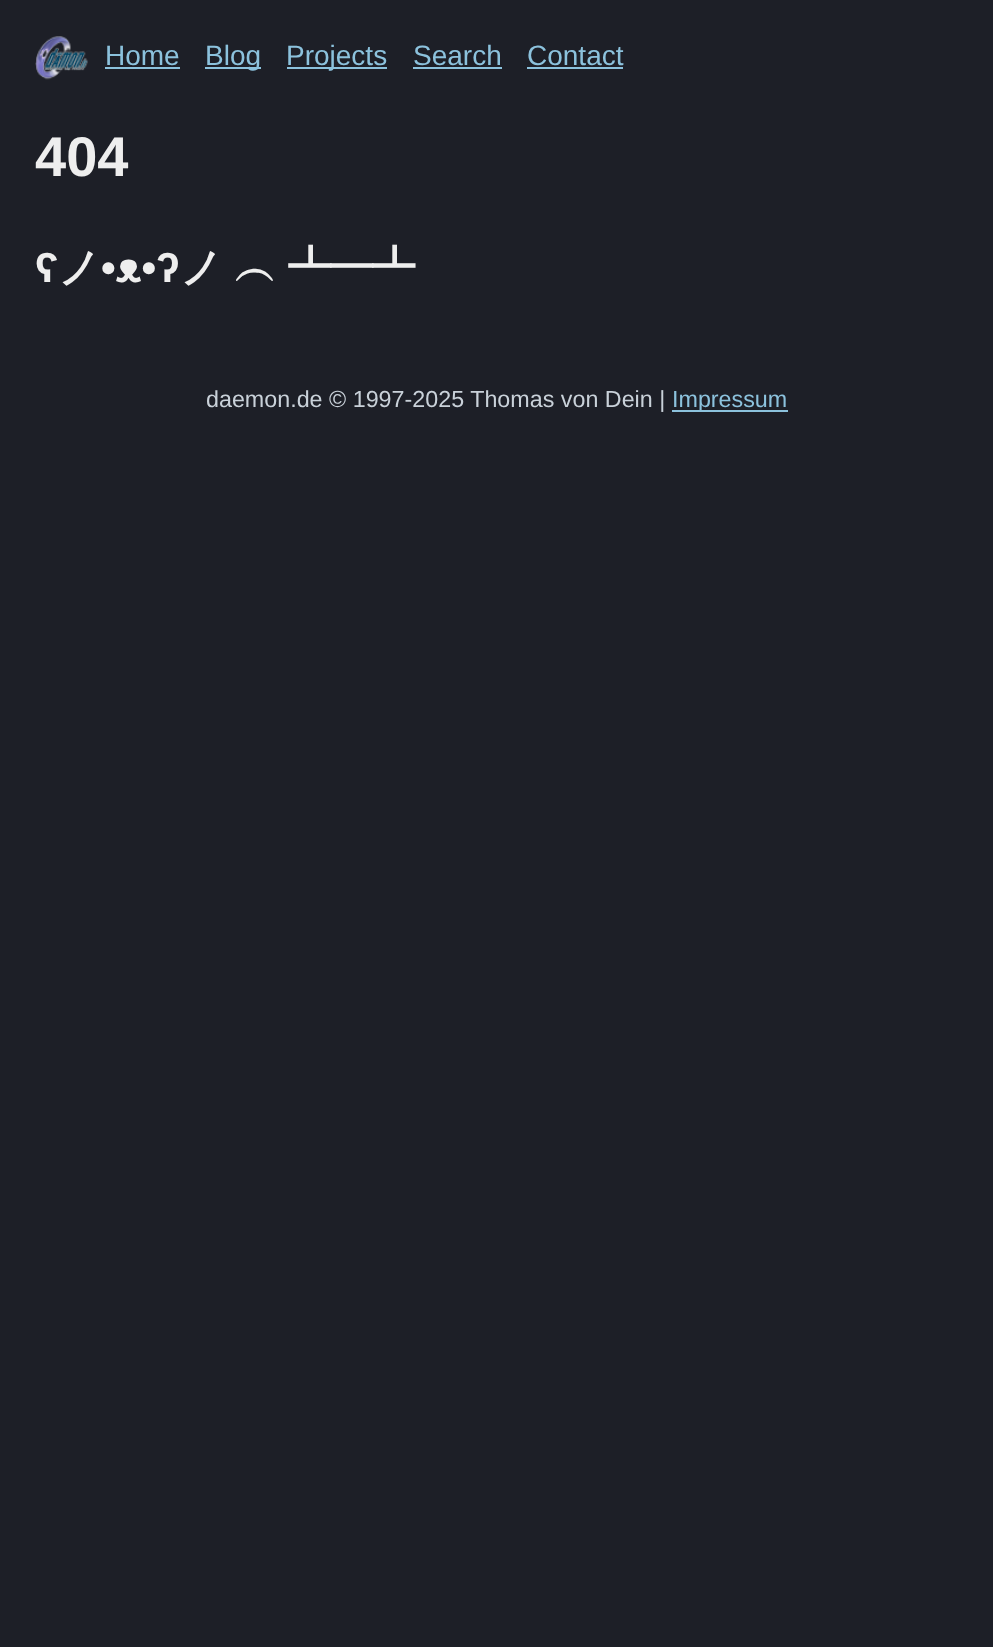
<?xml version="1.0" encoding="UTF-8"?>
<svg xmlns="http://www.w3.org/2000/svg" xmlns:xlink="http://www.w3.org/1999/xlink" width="993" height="1647">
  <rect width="100%" height="100%" fill="#1d1f27" />
  <image x="35" y="36" width="53" height="44" xlink:href="image1.png" />
  <rect x="105" y="67" width="75" height="2" fill="#8cc2dd" />
  <rect x="205" y="67" width="56" height="2" fill="#8cc2dd" />
  <rect x="287" y="67" width="100" height="2" fill="#8cc2dd" />
  <rect x="413" y="67" width="89" height="2" fill="#8cc2dd" />
  <rect x="527" y="67" width="96" height="2" fill="#8cc2dd" />
  <rect x="672" y="410" width="116" height="2" fill="#8cc2dd" />
  <text x="105" y="65" style="font-family: Liberation Sans; font-size: 28px; fill: #8cc2dd">Home</text>
  <text x="205" y="65" style="font-family: Liberation Sans; font-size: 28px; fill: #8cc2dd">Blog</text>
  <text x="286" y="65" style="font-family: Liberation Sans; font-size: 28px; fill: #8cc2dd">Projects</text>
  <text x="413" y="65" style="font-family: Liberation Sans; font-size: 28px; fill: #8cc2dd">Search</text>
  <text x="527" y="65" style="font-family: Liberation Sans; font-size: 28px; fill: #8cc2dd">Contact</text>
  <text x="35" y="176" style="font-family: Liberation Sans; font-size: 56px; font-weight: bold; fill: #eeeeee">404</text>
  <text x="35" y="282" style="font-family: Liberation Sans; font-size: 42px; font-weight: bold; fill: #eeeeee">ʕ</text>
  <text x="58" y="282" style="font-family: WenQuanYi Zen Hei; font-size: 42px; font-weight: bold; fill: #eeeeee">ノ</text>
  <text x="101" y="282" style="font-family: Liberation Sans; font-size: 42px; font-weight: bold; fill: #eeeeee">•ᴥ•ʔ</text>
  <text x="180" y="282" word-spacing="-1" style="font-family: WenQuanYi Zen Hei; font-size: 42px; font-weight: bold; fill: #eeeeee">ノ ︵ ┻━┻</text>
  <text x="206" y="407" style="font-family: Liberation Sans; font-size: 23.3px; fill: #c9d1d9">daemon.de © 1997-2025 Thomas von Dein |</text>
  <text x="672" y="407" style="font-family: Liberation Sans; font-size: 23.3px; fill: #8cc2dd">Impressum</text>
</svg>
